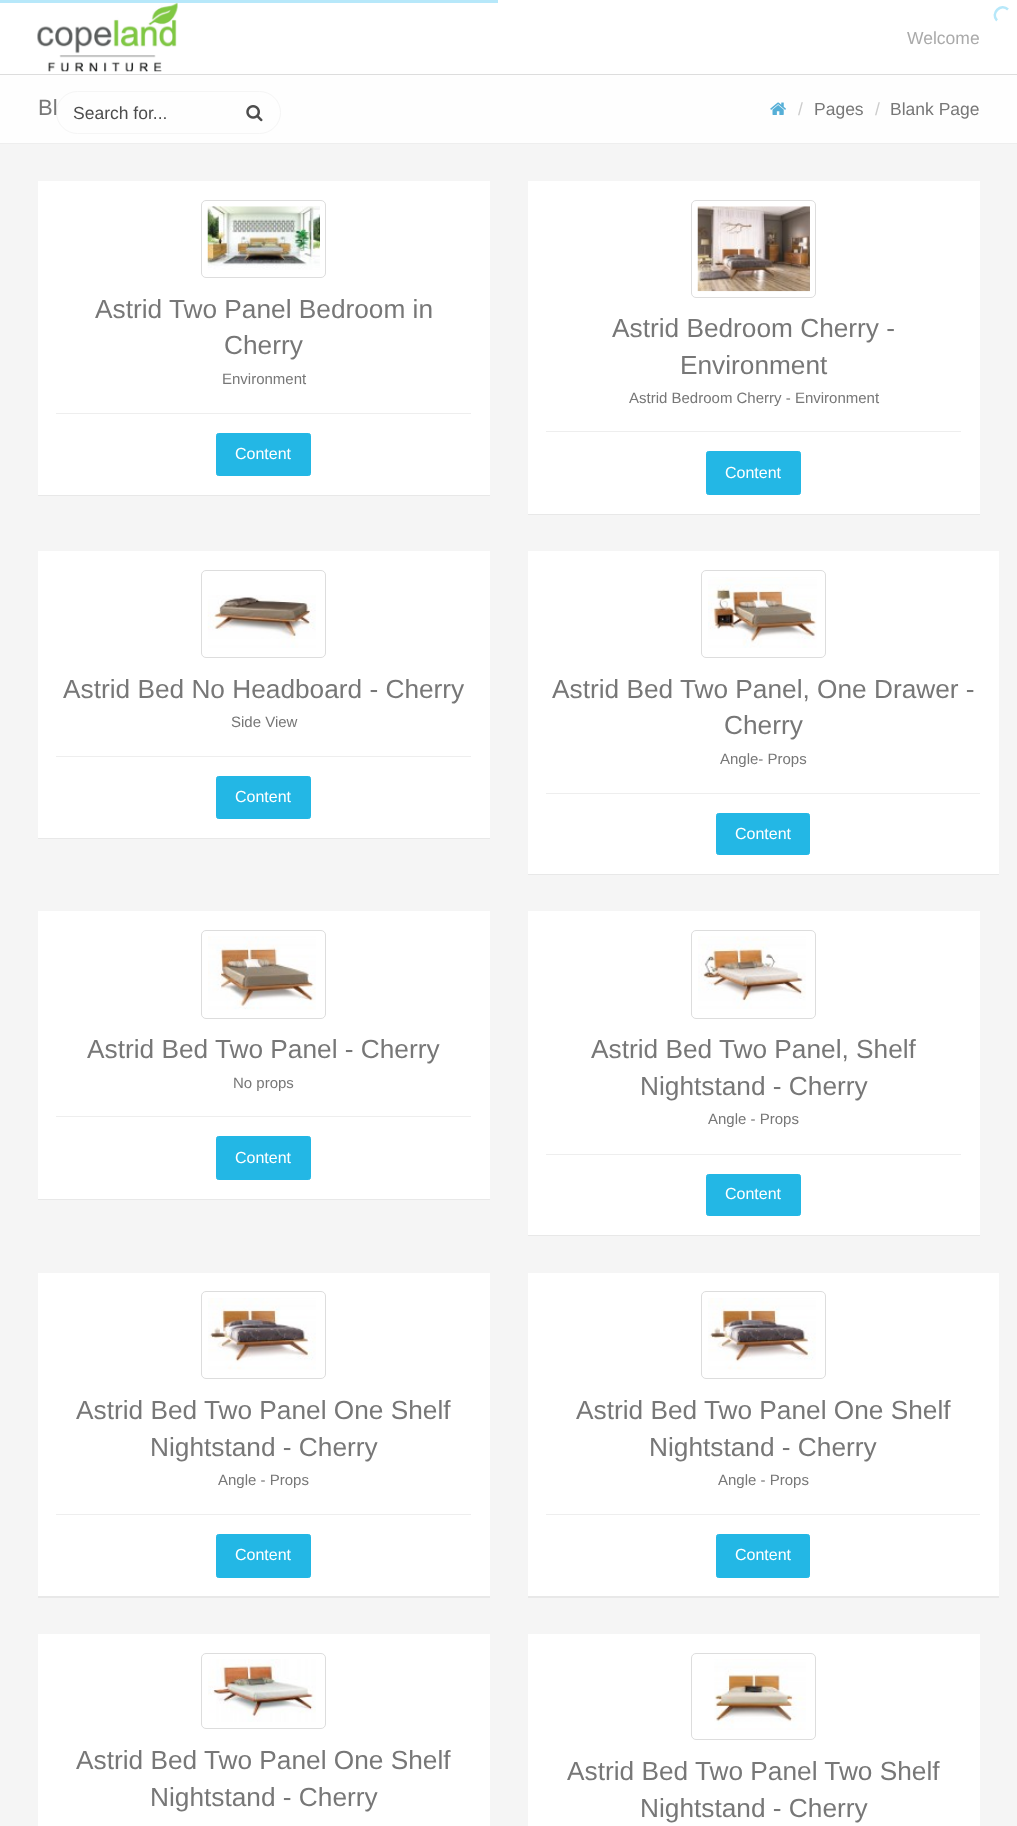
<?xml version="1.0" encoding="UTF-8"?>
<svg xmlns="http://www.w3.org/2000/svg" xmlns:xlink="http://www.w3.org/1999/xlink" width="1017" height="1826">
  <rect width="100%" height="100%" fill="#f5f5f5" />
  <rect width="1017" height="74" fill="#ffffff" />
  <rect width="498" height="3" fill="#b7e8fa" />
  <path d="M 997 20.5 c -7 -7 4 -18 11 -11" fill="none" stroke="#b7e8fa" stroke-width="2.5" />
  <rect y="74" width="1017" height="1" fill="#dddddd" />
  <image x="37" y="3" width="141" height="69" xlink:href="image1.png" />
  <rect y="75" width="1017" height="68" fill="#fefefe" />
  <rect x="56.5" y="91.5" width="224" height="42" rx="21" fill="none" stroke="#f5f5f5" />
  <image x="246" y="105" width="17" height="17" xlink:href="image2.png" />
  <rect y="143" width="1017" height="1" fill="#eeeeee" />
  <image x="770" y="102" width="16" height="13" xlink:href="image3.png" />
  <rect x="38" y="183" width="452" height="313" fill="#000000" fill-opacity="0.05" filter="blur(0.5px)" />
  <rect x="38" y="181" width="452" height="314" fill="#ffffff" />
  <rect x="201.5" y="200.5" width="124" height="77" rx="4.5" fill="none" stroke="#dddddd" />
  <image x="207" y="206" width="113" height="64" xlink:href="image4.png" />
  <rect x="56" y="413" width="415" height="1" fill="#eeeeee" />
  <rect x="216.5" y="433.5" width="94" height="42" rx="2" fill="#23b7e5" stroke="#23b7e5" />
  <rect x="528" y="183" width="452" height="332" fill="#000000" fill-opacity="0.05" filter="blur(0.5px)" />
  <rect x="528" y="181" width="452" height="333" fill="#ffffff" />
  <rect x="691.5" y="200.5" width="124" height="97" rx="4.5" fill="none" stroke="#dddddd" />
  <image x="697" y="206" width="113" height="86" xlink:href="image5.png" />
  <rect x="546" y="431" width="415" height="1" fill="#eeeeee" />
  <rect x="706.5" y="451.5" width="94" height="43" rx="2" fill="#23b7e5" stroke="#23b7e5" />
  <rect x="38" y="553" width="452" height="286" fill="#000000" fill-opacity="0.05" filter="blur(0.5px)" />
  <rect x="38" y="551" width="452" height="287" fill="#ffffff" />
  <rect x="201.5" y="570.5" width="124" height="87" rx="4.5" fill="none" stroke="#dddddd" />
  <image x="207" y="595" width="109" height="53" xlink:href="image6.png" />
  <rect x="56" y="756" width="415" height="1" fill="#eeeeee" />
  <rect x="216.5" y="776.5" width="94" height="42" rx="2" fill="#23b7e5" stroke="#23b7e5" />
  <rect x="528" y="553" width="471" height="322" fill="#000000" fill-opacity="0.05" filter="blur(0.5px)" />
  <rect x="528" y="551" width="471" height="323" fill="#ffffff" />
  <rect x="701.5" y="570.5" width="124" height="87" rx="4.5" fill="none" stroke="#dddddd" />
  <image x="708" y="577" width="109" height="71" xlink:href="image7.png" />
  <rect x="546" y="793" width="434" height="1" fill="#eeeeee" />
  <rect x="716.5" y="813.5" width="93" height="41" rx="2" fill="#23b7e5" stroke="#23b7e5" />
  <rect x="38" y="913" width="452" height="287" fill="#000000" fill-opacity="0.05" filter="blur(0.5px)" />
  <rect x="38" y="911" width="452" height="288" fill="#ffffff" />
  <rect x="201.5" y="930.5" width="124" height="88" rx="4.5" fill="none" stroke="#dddddd" />
  <image x="208" y="936" width="108" height="74" xlink:href="image8.png" />
  <rect x="56" y="1116" width="415" height="1" fill="#eeeeee" />
  <rect x="216.5" y="1136.5" width="94" height="43" rx="2" fill="#23b7e5" stroke="#23b7e5" />
  <rect x="528" y="913" width="452" height="323" fill="#000000" fill-opacity="0.05" filter="blur(0.5px)" />
  <rect x="528" y="911" width="452" height="324" fill="#ffffff" />
  <rect x="691.5" y="930.5" width="124" height="88" rx="4.5" fill="none" stroke="#dddddd" />
  <image x="698" y="936" width="108" height="73" xlink:href="image9.png" />
  <rect x="546" y="1154" width="415" height="1" fill="#eeeeee" />
  <rect x="706.5" y="1174.5" width="94" height="41" rx="2" fill="#23b7e5" stroke="#23b7e5" />
  <rect x="38" y="1274" width="452" height="324" fill="#000000" fill-opacity="0.05" filter="blur(0.5px)" />
  <rect x="38" y="1273" width="452" height="323" fill="#ffffff" />
  <rect x="201.5" y="1291.5" width="124" height="87" rx="4.5" fill="none" stroke="#dddddd" />
  <image x="208" y="1298" width="108" height="72" xlink:href="image10.png" />
  <rect x="56" y="1514" width="415" height="1" fill="#eeeeee" />
  <rect x="216.5" y="1534.5" width="94" height="43" rx="2" fill="#23b7e5" stroke="#23b7e5" />
  <rect x="528" y="1274" width="471" height="324" fill="#000000" fill-opacity="0.05" filter="blur(0.5px)" />
  <rect x="528" y="1273" width="471" height="323" fill="#ffffff" />
  <rect x="701.5" y="1291.5" width="124" height="87" rx="4.5" fill="none" stroke="#dddddd" />
  <image x="708" y="1298" width="108" height="72" xlink:href="image11.png" />
  <rect x="546" y="1514" width="434" height="1" fill="#eeeeee" />
  <rect x="716.5" y="1534.5" width="93" height="43" rx="2" fill="#23b7e5" stroke="#23b7e5" />
  <rect x="38" y="1634" width="452" height="192" fill="#ffffff" />
  <rect x="201.5" y="1653.5" width="124" height="75" rx="4.5" fill="none" stroke="#dddddd" />
  <image x="208" y="1659" width="108" height="63" xlink:href="image12.png" />
  <rect x="528" y="1634" width="452" height="192" fill="#ffffff" />
  <rect x="691.5" y="1653.5" width="124" height="86" rx="4.5" fill="none" stroke="#dddddd" />
  <image x="714" y="1659" width="92" height="71" xlink:href="image13.png" />
  <text x="907" y="44" style="font-family: Arimo; font-size: 17.5px; fill: #aaaaaa">Welcome</text>
  <text x="73" y="119" style="font-family: Arimo; font-size: 17.5px; fill: #4d4d4d">Search for...</text>
  <text x="38" y="115" style="font-family: Arimo; font-size: 22px; fill: #777777">Bl</text>
  <text x="798" y="115" style="font-family: Arimo; font-size: 17.5px; fill: #cccccc">/</text>
  <text x="814" y="115" style="font-family: Arimo; font-size: 17.5px; fill: #777777">Pages</text>
  <text x="875" y="115" style="font-family: Arimo; font-size: 17.5px; fill: #cccccc">/</text>
  <text x="890" y="115" style="font-family: Arimo; font-size: 17.5px; fill: #777777">Blank Page</text>
  <text x="95" y="318" style="font-family: Arimo; font-size: 26.25px; fill: #777777">Astrid Two Panel Bedroom in</text>
  <text x="224" y="354" style="font-family: Arimo; font-size: 26.25px; fill: #777777">Cherry</text>
  <text x="222" y="384" style="font-family: Arimo; font-size: 15px; fill: #777777">Environment</text>
  <text x="235" y="459" style="font-family: Arimo; font-size: 16px; fill: #ffffff">Content</text>
  <text x="612" y="337" style="font-family: Arimo; font-size: 26.25px; fill: #777777">Astrid Bedroom Cherry -</text>
  <text x="680" y="374" style="font-family: Arimo; font-size: 26.25px; fill: #777777">Environment</text>
  <text x="629" y="403" style="font-family: Arimo; font-size: 15px; fill: #777777">Astrid Bedroom Cherry - Environment</text>
  <text x="725" y="478" style="font-family: Arimo; font-size: 16px; fill: #ffffff">Content</text>
  <text x="63" y="698" style="font-family: Arimo; font-size: 26.25px; fill: #777777">Astrid Bed No Headboard - Cherry</text>
  <text x="231" y="727" style="font-family: Arimo; font-size: 15px; fill: #777777">Side View</text>
  <text x="235" y="802" style="font-family: Arimo; font-size: 16px; fill: #ffffff">Content</text>
  <text x="552" y="698" style="font-family: Arimo; font-size: 26.25px; fill: #777777">Astrid Bed Two Panel, One Drawer -</text>
  <text x="724" y="734" style="font-family: Arimo; font-size: 26.25px; fill: #777777">Cherry</text>
  <text x="720" y="764" style="font-family: Arimo; font-size: 15px; fill: #777777">Angle- Props</text>
  <text x="735" y="839" style="font-family: Arimo; font-size: 16px; fill: #ffffff">Content</text>
  <text x="87" y="1058" style="font-family: Arimo; font-size: 26.25px; fill: #777777">Astrid Bed Two Panel - Cherry</text>
  <text x="233" y="1088" style="font-family: Arimo; font-size: 15px; fill: #777777">No props</text>
  <text x="235" y="1163" style="font-family: Arimo; font-size: 16px; fill: #ffffff">Content</text>
  <text x="591" y="1058" style="font-family: Arimo; font-size: 26.25px; fill: #777777">Astrid Bed Two Panel, Shelf</text>
  <text x="640" y="1095" style="font-family: Arimo; font-size: 26.25px; fill: #777777">Nightstand - Cherry</text>
  <text x="708" y="1124" style="font-family: Arimo; font-size: 15px; fill: #777777">Angle - Props</text>
  <text x="725" y="1199" style="font-family: Arimo; font-size: 16px; fill: #ffffff">Content</text>
  <text x="76" y="1419" style="font-family: Arimo; font-size: 26.25px; fill: #777777">Astrid Bed Two Panel One Shelf</text>
  <text x="150" y="1456" style="font-family: Arimo; font-size: 26.25px; fill: #777777">Nightstand - Cherry</text>
  <text x="218" y="1485" style="font-family: Arimo; font-size: 15px; fill: #777777">Angle - Props</text>
  <text x="235" y="1560" style="font-family: Arimo; font-size: 16px; fill: #ffffff">Content</text>
  <text x="576" y="1419" style="font-family: Arimo; font-size: 26.25px; fill: #777777">Astrid Bed Two Panel One Shelf</text>
  <text x="649" y="1456" style="font-family: Arimo; font-size: 26.25px; fill: #777777">Nightstand - Cherry</text>
  <text x="718" y="1485" style="font-family: Arimo; font-size: 15px; fill: #777777">Angle - Props</text>
  <text x="735" y="1560" style="font-family: Arimo; font-size: 16px; fill: #ffffff">Content</text>
  <text x="76" y="1769" style="font-family: Arimo; font-size: 26.25px; fill: #777777">Astrid Bed Two Panel One Shelf</text>
  <text x="150" y="1806" style="font-family: Arimo; font-size: 26.25px; fill: #777777">Nightstand - Cherry</text>
  <text x="567" y="1780" style="font-family: Arimo; font-size: 26.25px; fill: #777777">Astrid Bed Two Panel Two Shelf</text>
  <text x="640" y="1817" style="font-family: Arimo; font-size: 26.25px; fill: #777777">Nightstand - Cherry</text>
</svg>
